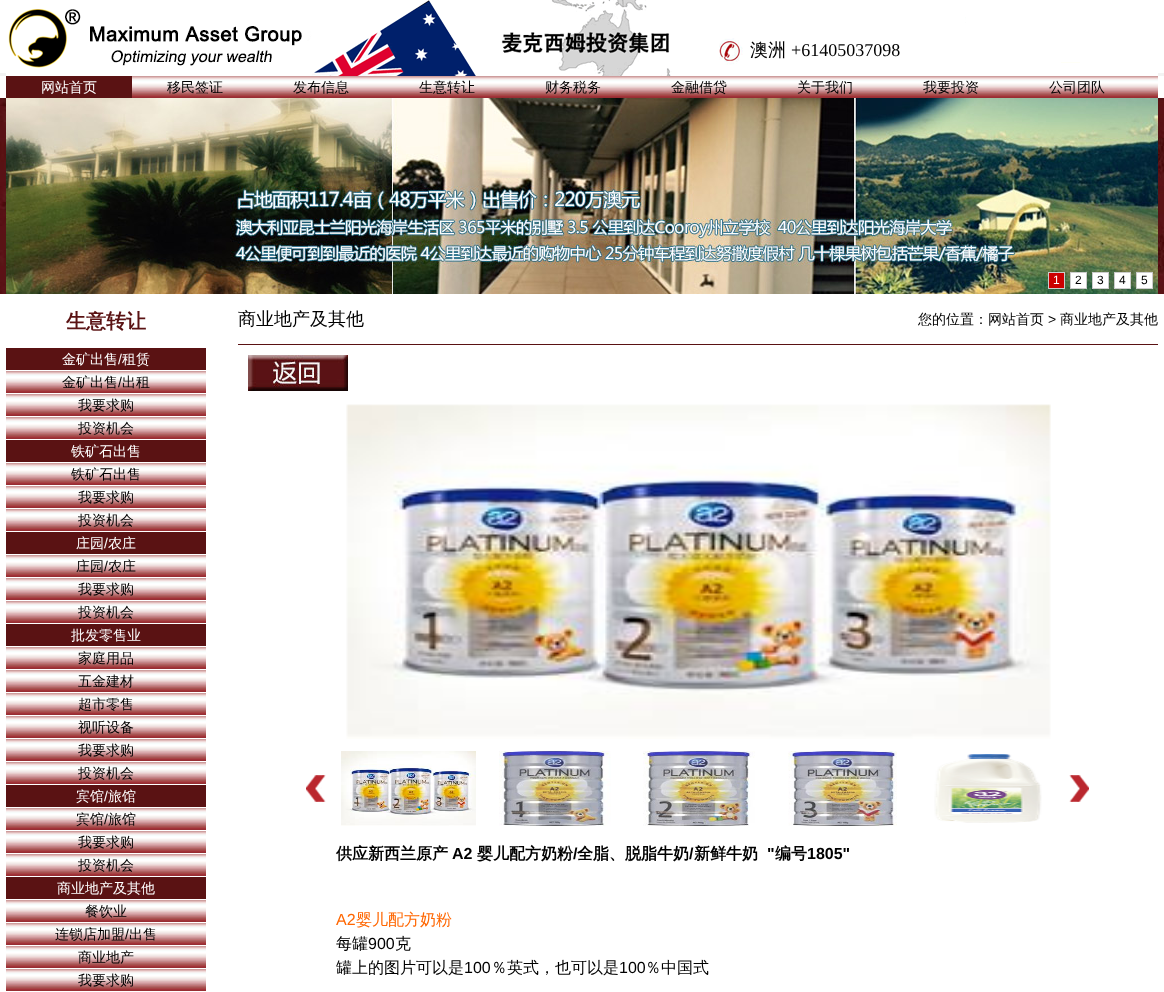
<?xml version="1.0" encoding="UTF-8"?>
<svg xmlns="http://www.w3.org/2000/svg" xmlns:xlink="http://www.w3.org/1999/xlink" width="1164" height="992">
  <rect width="100%" height="100%" fill="#ffffff" />
  <rect y="73" width="1164" height="3" fill="#f3f3f3" />
  <image x="6" y="0" width="1152" height="76" xlink:href="image1.png" />
  <image x="132" y="76" width="1026" height="22" xlink:href="image2.png" />
  <rect x="6" y="76" width="126" height="22" fill="#5a1213" />
  <image x="0" y="98" width="1164" height="196" xlink:href="image3.png" />
  <image x="6" y="98" width="1152" height="196" xlink:href="image4.png" />
  <rect x="1048.5" y="272.5" width="16" height="16" fill="#cc0000" stroke="#cccccc" />
  <rect x="1070.5" y="272.5" width="16" height="16" fill="#ffffff" stroke="#cccccc" />
  <rect x="1092.5" y="272.5" width="16" height="16" fill="#ffffff" stroke="#cccccc" />
  <rect x="1114.5" y="272.5" width="16" height="16" fill="#ffffff" stroke="#cccccc" />
  <rect x="1136.5" y="272.5" width="16" height="16" fill="#ffffff" stroke="#cccccc" />
  <rect x="6" y="348" width="200" height="22" fill="#5a1213" />
  <image x="6" y="371" width="200" height="22" xlink:href="image5.png" />
  <image x="6" y="394" width="200" height="22" xlink:href="image5.png" />
  <image x="6" y="417" width="200" height="22" xlink:href="image5.png" />
  <rect x="6" y="440" width="200" height="22" fill="#5a1213" />
  <image x="6" y="463" width="200" height="22" xlink:href="image5.png" />
  <image x="6" y="486" width="200" height="22" xlink:href="image5.png" />
  <image x="6" y="509" width="200" height="22" xlink:href="image5.png" />
  <rect x="6" y="532" width="200" height="22" fill="#5a1213" />
  <image x="6" y="555" width="200" height="22" xlink:href="image5.png" />
  <image x="6" y="578" width="200" height="22" xlink:href="image5.png" />
  <image x="6" y="601" width="200" height="22" xlink:href="image5.png" />
  <rect x="6" y="624" width="200" height="22" fill="#5a1213" />
  <image x="6" y="647" width="200" height="22" xlink:href="image5.png" />
  <image x="6" y="670" width="200" height="22" xlink:href="image5.png" />
  <image x="6" y="693" width="200" height="22" xlink:href="image5.png" />
  <image x="6" y="716" width="200" height="22" xlink:href="image5.png" />
  <image x="6" y="739" width="200" height="22" xlink:href="image5.png" />
  <image x="6" y="762" width="200" height="22" xlink:href="image5.png" />
  <rect x="6" y="785" width="200" height="22" fill="#5a1213" />
  <image x="6" y="808" width="200" height="22" xlink:href="image5.png" />
  <image x="6" y="831" width="200" height="22" xlink:href="image5.png" />
  <image x="6" y="854" width="200" height="22" xlink:href="image5.png" />
  <rect x="6" y="877" width="200" height="22" fill="#5a1213" />
  <image x="6" y="900" width="200" height="22" xlink:href="image5.png" />
  <image x="6" y="923" width="200" height="22" xlink:href="image5.png" />
  <image x="6" y="946" width="200" height="22" xlink:href="image5.png" />
  <image x="6" y="969" width="200" height="22" xlink:href="image5.png" />
  <rect x="238" y="344" width="920" height="1" fill="#5a1213" />
  <image x="248" y="355" width="100" height="36" xlink:href="image6.png" />
  <image x="346" y="404" width="705" height="335" xlink:href="image7.png" />
  <image x="306" y="775" width="20" height="27" xlink:href="image8.png" />
  <image x="341" y="751" width="135" height="75" xlink:href="image9.png" />
  <image x="499" y="751" width="112" height="75" xlink:href="image10.png" />
  <image x="643" y="751" width="112" height="75" xlink:href="image11.png" />
  <image x="788" y="751" width="109" height="75" xlink:href="image12.png" />
  <image x="934" y="754" width="108" height="69" xlink:href="image13.png" />
  <image x="1069" y="775" width="20" height="27" xlink:href="image14.png" />
  <text x="750" y="56" style="font-family: WenQuanYi Zen Hei; font-size: 18px; font-weight: 500; fill: #000000">澳洲</text>
  <text x="791" y="56" style="font-family: Liberation Serif; font-size: 18px; fill: #000000">+61405037098</text>
  <text x="41" y="92" style="font-family: WenQuanYi Zen Hei; font-size: 14px; font-weight: 500; fill: #ffffff">网站首页</text>
  <text x="167" y="92" style="font-family: WenQuanYi Zen Hei; font-size: 14px; font-weight: 500; fill: #000000">移民签证</text>
  <text x="293" y="92" style="font-family: WenQuanYi Zen Hei; font-size: 14px; font-weight: 500; fill: #000000">发布信息</text>
  <text x="419" y="92" style="font-family: WenQuanYi Zen Hei; font-size: 14px; font-weight: 500; fill: #000000">生意转让</text>
  <text x="545" y="92" style="font-family: WenQuanYi Zen Hei; font-size: 14px; font-weight: 500; fill: #000000">财务税务</text>
  <text x="671" y="92" style="font-family: WenQuanYi Zen Hei; font-size: 14px; font-weight: 500; fill: #000000">金融借贷</text>
  <text x="797" y="92" style="font-family: WenQuanYi Zen Hei; font-size: 14px; font-weight: 500; fill: #000000">关于我们</text>
  <text x="923" y="92" style="font-family: WenQuanYi Zen Hei; font-size: 14px; font-weight: 500; fill: #000000">我要投资</text>
  <text x="1049" y="92" style="font-family: WenQuanYi Zen Hei; font-size: 14px; font-weight: 500; fill: #000000">公司团队</text>
  <text x="1053" y="284" style="font-family: Liberation Sans; font-size: 12px; fill: #ffffff">1</text>
  <text x="1075" y="284" style="font-family: Liberation Sans; font-size: 12px; fill: #000000">2</text>
  <text x="1097" y="284" style="font-family: Liberation Sans; font-size: 12px; fill: #000000">3</text>
  <text x="1119" y="284" style="font-family: Liberation Sans; font-size: 12px; fill: #000000">4</text>
  <text x="1141" y="284" style="font-family: Liberation Sans; font-size: 12px; fill: #000000">5</text>
  <text x="66" y="328" style="font-family: WenQuanYi Zen Hei; font-size: 20px; font-weight: bold; fill: #5a1213">生意转让</text>
  <text x="62" y="364" style="font-family: WenQuanYi Zen Hei; font-size: 14px; font-weight: 500; fill: #ffffff">金矿出售</text>
  <text x="118" y="364" style="font-family: Liberation Sans; font-size: 14px; fill: #ffffff">/</text>
  <text x="122" y="364" style="font-family: WenQuanYi Zen Hei; font-size: 14px; font-weight: 500; fill: #ffffff">租赁</text>
  <text x="62" y="387" style="font-family: WenQuanYi Zen Hei; font-size: 14px; font-weight: 500; fill: #000000">金矿出售</text>
  <text x="118" y="387" style="font-family: Liberation Sans; font-size: 14px; fill: #000000">/</text>
  <text x="122" y="387" style="font-family: WenQuanYi Zen Hei; font-size: 14px; font-weight: 500; fill: #000000">出租</text>
  <text x="78" y="410" style="font-family: WenQuanYi Zen Hei; font-size: 14px; font-weight: 500; fill: #000000">我要求购</text>
  <text x="78" y="433" style="font-family: WenQuanYi Zen Hei; font-size: 14px; font-weight: 500; fill: #000000">投资机会</text>
  <text x="71" y="456" style="font-family: WenQuanYi Zen Hei; font-size: 14px; font-weight: 500; fill: #ffffff">铁矿石出售</text>
  <text x="71" y="479" style="font-family: WenQuanYi Zen Hei; font-size: 14px; font-weight: 500; fill: #000000">铁矿石出售</text>
  <text x="78" y="502" style="font-family: WenQuanYi Zen Hei; font-size: 14px; font-weight: 500; fill: #000000">我要求购</text>
  <text x="78" y="525" style="font-family: WenQuanYi Zen Hei; font-size: 14px; font-weight: 500; fill: #000000">投资机会</text>
  <text x="76" y="548" style="font-family: WenQuanYi Zen Hei; font-size: 14px; font-weight: 500; fill: #ffffff">庄园</text>
  <text x="104" y="548" style="font-family: Liberation Sans; font-size: 14px; fill: #ffffff">/</text>
  <text x="108" y="548" style="font-family: WenQuanYi Zen Hei; font-size: 14px; font-weight: 500; fill: #ffffff">农庄</text>
  <text x="76" y="571" style="font-family: WenQuanYi Zen Hei; font-size: 14px; font-weight: 500; fill: #000000">庄园</text>
  <text x="104" y="571" style="font-family: Liberation Sans; font-size: 14px; fill: #000000">/</text>
  <text x="108" y="571" style="font-family: WenQuanYi Zen Hei; font-size: 14px; font-weight: 500; fill: #000000">农庄</text>
  <text x="78" y="594" style="font-family: WenQuanYi Zen Hei; font-size: 14px; font-weight: 500; fill: #000000">我要求购</text>
  <text x="78" y="617" style="font-family: WenQuanYi Zen Hei; font-size: 14px; font-weight: 500; fill: #000000">投资机会</text>
  <text x="71" y="640" style="font-family: WenQuanYi Zen Hei; font-size: 14px; font-weight: 500; fill: #ffffff">批发零售业</text>
  <text x="78" y="663" style="font-family: WenQuanYi Zen Hei; font-size: 14px; font-weight: 500; fill: #000000">家庭用品</text>
  <text x="78" y="686" style="font-family: WenQuanYi Zen Hei; font-size: 14px; font-weight: 500; fill: #000000">五金建材</text>
  <text x="78" y="709" style="font-family: WenQuanYi Zen Hei; font-size: 14px; font-weight: 500; fill: #000000">超市零售</text>
  <text x="78" y="732" style="font-family: WenQuanYi Zen Hei; font-size: 14px; font-weight: 500; fill: #000000">视听设备</text>
  <text x="78" y="755" style="font-family: WenQuanYi Zen Hei; font-size: 14px; font-weight: 500; fill: #000000">我要求购</text>
  <text x="78" y="778" style="font-family: WenQuanYi Zen Hei; font-size: 14px; font-weight: 500; fill: #000000">投资机会</text>
  <text x="76" y="801" style="font-family: WenQuanYi Zen Hei; font-size: 14px; font-weight: 500; fill: #ffffff">宾馆</text>
  <text x="104" y="801" style="font-family: Liberation Sans; font-size: 14px; fill: #ffffff">/</text>
  <text x="108" y="801" style="font-family: WenQuanYi Zen Hei; font-size: 14px; font-weight: 500; fill: #ffffff">旅馆</text>
  <text x="76" y="824" style="font-family: WenQuanYi Zen Hei; font-size: 14px; font-weight: 500; fill: #000000">宾馆</text>
  <text x="104" y="824" style="font-family: Liberation Sans; font-size: 14px; fill: #000000">/</text>
  <text x="108" y="824" style="font-family: WenQuanYi Zen Hei; font-size: 14px; font-weight: 500; fill: #000000">旅馆</text>
  <text x="78" y="847" style="font-family: WenQuanYi Zen Hei; font-size: 14px; font-weight: 500; fill: #000000">我要求购</text>
  <text x="78" y="870" style="font-family: WenQuanYi Zen Hei; font-size: 14px; font-weight: 500; fill: #000000">投资机会</text>
  <text x="57" y="893" style="font-family: WenQuanYi Zen Hei; font-size: 14px; font-weight: 500; fill: #ffffff">商业地产及其他</text>
  <text x="85" y="916" style="font-family: WenQuanYi Zen Hei; font-size: 14px; font-weight: 500; fill: #000000">餐饮业</text>
  <text x="55" y="939" style="font-family: WenQuanYi Zen Hei; font-size: 14px; font-weight: 500; fill: #000000">连锁店加盟</text>
  <text x="125" y="939" style="font-family: Liberation Sans; font-size: 14px; fill: #000000">/</text>
  <text x="129" y="939" style="font-family: WenQuanYi Zen Hei; font-size: 14px; font-weight: 500; fill: #000000">出售</text>
  <text x="78" y="962" style="font-family: WenQuanYi Zen Hei; font-size: 14px; font-weight: 500; fill: #000000">商业地产</text>
  <text x="78" y="985" style="font-family: WenQuanYi Zen Hei; font-size: 14px; font-weight: 500; fill: #000000">我要求购</text>
  <text x="238" y="325" style="font-family: WenQuanYi Zen Hei; font-size: 18px; font-weight: 500; fill: #000000">商业地产及其他</text>
  <text x="918" y="324" style="font-family: WenQuanYi Zen Hei; font-size: 14px; font-weight: 500; fill: #000000">您的位置：网站首页</text>
  <text x="1048" y="324" style="font-family: Liberation Sans; font-size: 14px; fill: #000000">&gt;</text>
  <text x="1060" y="324" style="font-family: WenQuanYi Zen Hei; font-size: 14px; font-weight: 500; fill: #000000">商业地产及其他</text>
  <text x="336" y="859" style="font-family: WenQuanYi Zen Hei; font-size: 16px; font-weight: bold; fill: #000000">供应新西兰原产</text>
  <text x="452" y="859" style="font-family: Liberation Sans; font-size: 16px; font-weight: bold; fill: #000000">A2</text>
  <text x="477" y="859" style="font-family: WenQuanYi Zen Hei; font-size: 16px; font-weight: bold; fill: #000000">婴儿配方奶粉</text>
  <text x="573" y="859" style="font-family: Liberation Sans; font-size: 16px; font-weight: bold; fill: #000000">/</text>
  <text x="577" y="859" style="font-family: WenQuanYi Zen Hei; font-size: 16px; font-weight: bold; fill: #000000">全脂、脱脂牛奶</text>
  <text x="689" y="859" style="font-family: Liberation Sans; font-size: 16px; font-weight: bold; fill: #000000">/</text>
  <text x="694" y="859" style="font-family: WenQuanYi Zen Hei; font-size: 16px; font-weight: bold; fill: #000000">新鲜牛奶</text>
  <text x="767" y="859" style="font-family: Liberation Sans; font-size: 16px; font-weight: bold; fill: #000000">"</text>
  <text x="775" y="859" style="font-family: WenQuanYi Zen Hei; font-size: 16px; font-weight: bold; fill: #000000">编号</text>
  <text x="807" y="859" style="font-family: Liberation Sans; font-size: 16px; font-weight: bold; fill: #000000">1805"</text>
  <text x="336" y="925" style="font-family: Liberation Sans; font-size: 16px; fill: #ff6600">A2</text>
  <text x="356" y="925" style="font-family: WenQuanYi Zen Hei; font-size: 16px; font-weight: 500; fill: #ff6600">婴儿配方奶粉</text>
  <text x="336" y="949" style="font-family: WenQuanYi Zen Hei; font-size: 16px; font-weight: 500; fill: #000000">每罐</text>
  <text x="368" y="949" style="font-family: Liberation Sans; font-size: 16px; fill: #000000">900</text>
  <text x="395" y="949" style="font-family: WenQuanYi Zen Hei; font-size: 16px; font-weight: 500; fill: #000000">克</text>
  <text x="336" y="973" style="font-family: WenQuanYi Zen Hei; font-size: 16px; font-weight: 500; fill: #000000">罐上的图片可以是</text>
  <text x="464" y="973" style="font-family: Liberation Sans; font-size: 16px; fill: #000000">100</text>
  <text x="491" y="973" style="font-family: WenQuanYi Zen Hei; font-size: 16px; font-weight: 500; fill: #000000">％英式，也可以是</text>
  <text x="619" y="973" style="font-family: Liberation Sans; font-size: 16px; fill: #000000">100</text>
  <text x="645" y="973" style="font-family: WenQuanYi Zen Hei; font-size: 16px; font-weight: 500; fill: #000000">％中国式</text>
</svg>
